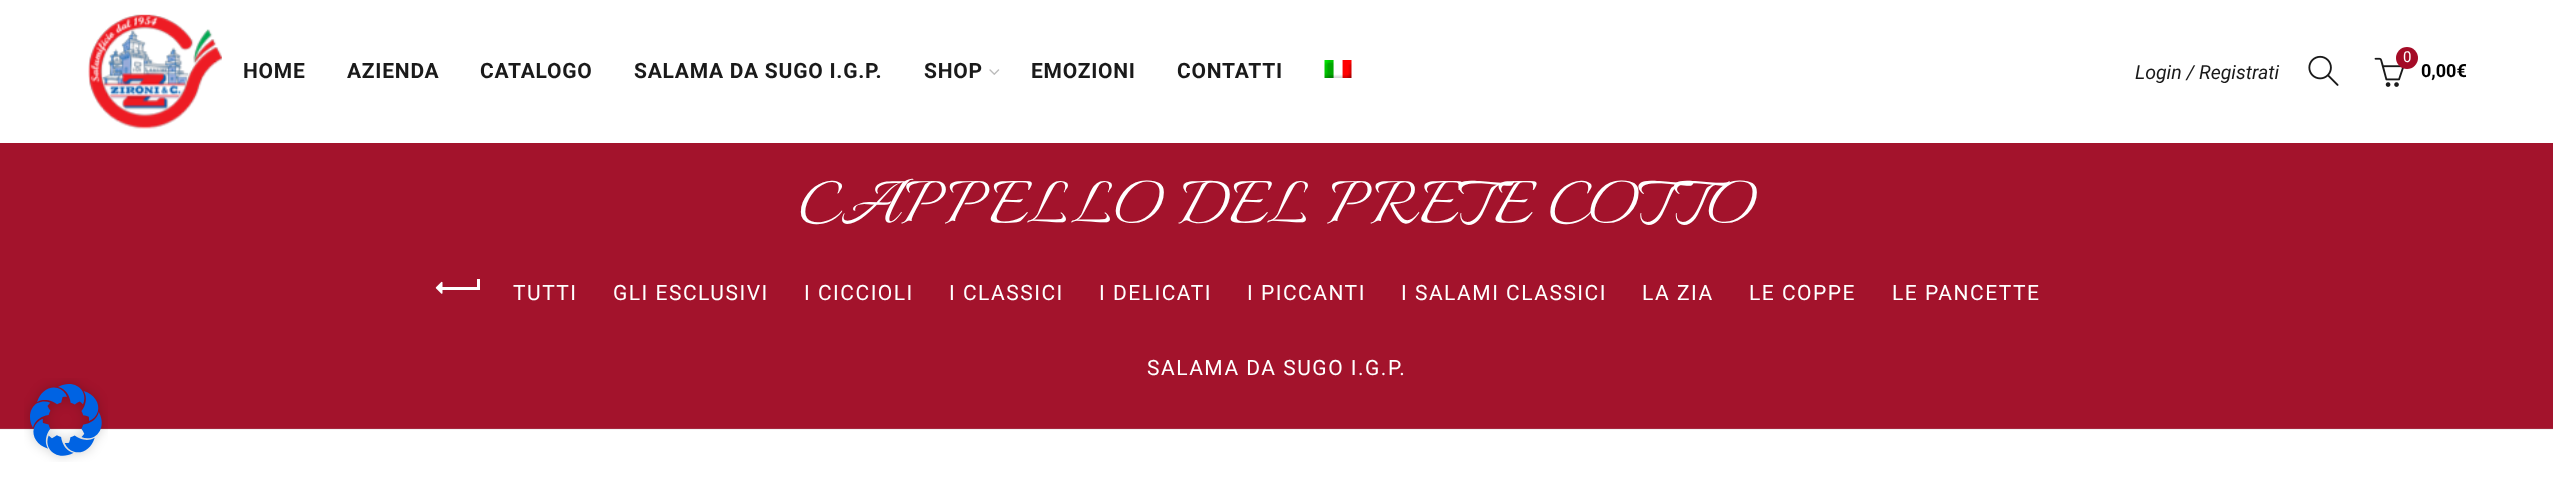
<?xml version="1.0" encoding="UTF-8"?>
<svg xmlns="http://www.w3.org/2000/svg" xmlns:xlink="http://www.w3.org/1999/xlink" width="2553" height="485">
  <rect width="100%" height="100%" fill="#ffffff" />
  <rect y="429" width="2553" height="1" fill="#f2f2f2" />
  <image x="88" y="14" width="134" height="115" xlink:href="image1.png" />
  <image x="989" y="69" width="11" height="6" xlink:href="image2.png" />
  <image x="1324" y="60" width="28" height="18" xlink:href="image3.png" />
  <image x="2308" y="55" width="31" height="31" xlink:href="image4.png" />
  <image x="2374" y="57" width="30" height="30" xlink:href="image5.png" />
  <circle cx="2407" cy="58" r="11" fill="#a40b26" />
  <rect y="143" width="2553" height="285" fill="#a3132c" />
  <rect y="428" width="2553" height="1" fill="#a4293f" />
  <rect x="441" y="287" width="38" height="3" fill="#ffffff" />
  <image x="435" y="281" width="8" height="13" xlink:href="image6.png" />
  <rect x="477" y="279" width="3" height="11" fill="#ffffff" />
  <image x="24" y="378" width="84" height="84" xlink:href="image7.png" />
  <text x="243" y="78" style="font-family: Roboto; font-size: 21px; font-weight: bold; letter-spacing: 0.75px; fill: #1a1a1a">HOME</text>
  <text x="347" y="78" style="font-family: Roboto; font-size: 21px; font-weight: bold; letter-spacing: 0.75px; fill: #1a1a1a">AZIENDA</text>
  <text x="480" y="78" style="font-family: Roboto; font-size: 21px; font-weight: bold; letter-spacing: 0.75px; fill: #1a1a1a">CATALOGO</text>
  <text x="634" y="78" style="font-family: Roboto; font-size: 21px; font-weight: bold; letter-spacing: 0.75px; fill: #1a1a1a">SALAMA DA SUGO I.G.P.</text>
  <text x="924" y="78" style="font-family: Roboto; font-size: 21px; font-weight: bold; letter-spacing: 0.75px; fill: #1a1a1a">SHOP</text>
  <text x="1031" y="78" style="font-family: Roboto; font-size: 21px; font-weight: bold; letter-spacing: 0.75px; fill: #1a1a1a">EMOZIONI</text>
  <text x="1177" y="78" style="font-family: Roboto; font-size: 21px; font-weight: bold; letter-spacing: 0.75px; fill: #1a1a1a">CONTATTI</text>
  <text x="2135" y="79" style="font-family: Roboto; font-size: 19.5px; font-style: italic; fill: #1a1a1a">Login / Registrati</text>
  <text x="2403" y="62" style="font-family: Roboto; font-size: 15px; fill: #ffffff">0</text>
  <text x="2421" y="77" style="font-family: Roboto; font-size: 18px; font-weight: bold; fill: #000000">0,00€</text>
  <text x="798" y="222" style="font-family: Italianno; font-size: 75px; letter-spacing: 3px; fill: #ffffff">CAPPELLO DEL PRETE COTTO</text>
  <text x="513" y="300" style="font-family: Roboto; font-size: 21px; letter-spacing: 1.5px; fill: #ffffff">TUTTI</text>
  <text x="613" y="300" style="font-family: Roboto; font-size: 21px; letter-spacing: 1.5px; fill: #ffffff">GLI ESCLUSIVI</text>
  <text x="804" y="300" style="font-family: Roboto; font-size: 21px; letter-spacing: 1.5px; fill: #ffffff">I CICCIOLI</text>
  <text x="949" y="300" style="font-family: Roboto; font-size: 21px; letter-spacing: 1.5px; fill: #ffffff">I CLASSICI</text>
  <text x="1099" y="300" style="font-family: Roboto; font-size: 21px; letter-spacing: 1.5px; fill: #ffffff">I DELICATI</text>
  <text x="1247" y="300" style="font-family: Roboto; font-size: 21px; letter-spacing: 1.5px; fill: #ffffff">I PICCANTI</text>
  <text x="1401" y="300" style="font-family: Roboto; font-size: 21px; letter-spacing: 1.5px; fill: #ffffff">I SALAMI CLASSICI</text>
  <text x="1642" y="300" style="font-family: Roboto; font-size: 21px; letter-spacing: 1.5px; fill: #ffffff">LA ZIA</text>
  <text x="1749" y="300" style="font-family: Roboto; font-size: 21px; letter-spacing: 1.5px; fill: #ffffff">LE COPPE</text>
  <text x="1892" y="300" style="font-family: Roboto; font-size: 21px; letter-spacing: 1.5px; fill: #ffffff">LE PANCETTE</text>
  <text x="1147" y="375" style="font-family: Roboto; font-size: 21px; letter-spacing: 1.5px; fill: #ffffff">SALAMA DA SUGO I.G.P.</text>
</svg>
